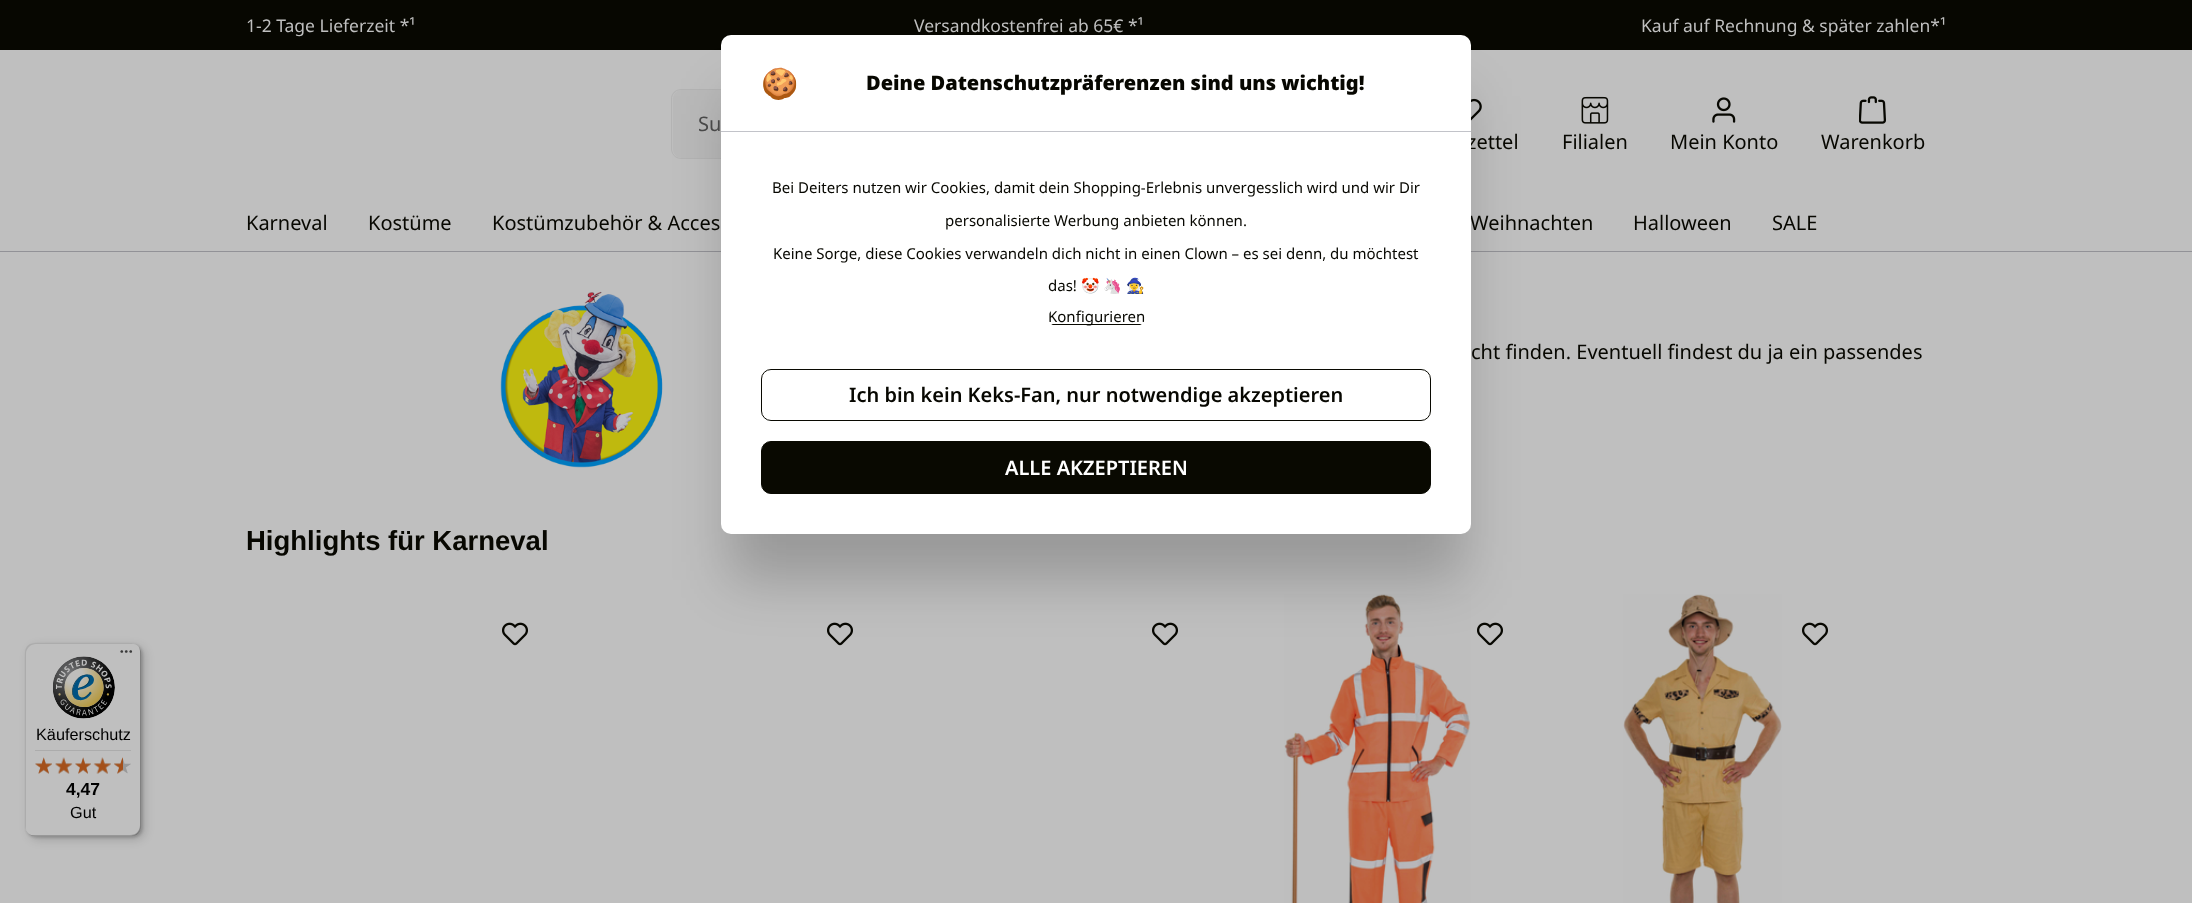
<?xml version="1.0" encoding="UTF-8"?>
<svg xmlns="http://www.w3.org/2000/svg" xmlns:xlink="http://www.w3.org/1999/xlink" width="2192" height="903">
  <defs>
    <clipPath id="clip1"><rect x="1048" y="309" width="97" height="17" rx="8.5" /></clipPath>
  </defs>
  <rect width="100%" height="100%" fill="#bfbfbf" />
  <rect width="2192" height="50" fill="#070701" />
  <path d="M 682 90 h 397 v 68 h -397 c -5 0 -9 -4 -9 -9 v -50 c 0 -5 4 -9 9 -9 z" fill="#b9b9b9" />
  <path d="M 681 89 h 398 v 70 h -398 c -5 0 -10 -5 -10 -10 v -50 c 0 -6 5 -10 10 -10 z m 0 1 h 398 v 68 h -398 c -5 0 -9 -4 -9 -9 v -50 c 0 -5 4 -9 9 -9 z" fill="#b3b3b3" fill-rule="evenodd" />
  <image x="1471" y="98" width="11" height="23" xlink:href="image1.png" />
  <rect y="251" width="2192" height="1" fill="#929297" />
  <image x="500" y="291" width="163" height="177" xlink:href="image5.png" />
  <image x="827" y="622" width="26" height="24" xlink:href="image6.png" />
  <image x="1152" y="622" width="26" height="24" xlink:href="image6.png" />
  <image x="1284" y="594" width="187" height="309" xlink:href="image7.png" />
  <image x="1477" y="622" width="26" height="24" xlink:href="image6.png" />
  <rect x="729" y="96" width="735" height="484" rx="2.5" fill="#000000" fill-opacity="0.2" filter="blur(27px)" />
  <image x="1581" y="96" width="28" height="28" xlink:href="image2.png" />
  <image x="1712" y="97" width="24" height="26" xlink:href="image3.png" />
  <image x="1859" y="96" width="27" height="28" xlink:href="image4.png" />
  <image x="502" y="622" width="26" height="24" xlink:href="image6.png" />
  <image x="1623" y="594" width="159" height="309" xlink:href="image8.png" />
  <image x="1802" y="622" width="26" height="24" xlink:href="image6.png" />
  <rect x="29" y="646" width="116" height="194" rx="10" fill="#000000" fill-opacity="0.15" filter="blur(5px)" />
  <rect x="26" y="644" width="117" height="194" rx="10" fill="#000000" fill-opacity="0.15" filter="blur(1px)" />
  <rect x="25" y="643" width="116" height="193" rx="10" fill="#bfbfbf" />
  <path d="M 36 644 h 96 c 2 0 4 0 5 1 c -1 -1 -4 -2 -6 -2 h -96 c -6 0 -10 4 -10 10 v 173 c 0 2 1 4 2 6 c -1 -1 -1 -3 -1 -4 v -174 c 0 -6 5 -10 10 -10 z" fill="#acacac" />
  <path d="M 29 834 c 1 1 4 2 6 2 h 96 c 6 0 10 -4 10 -10 v -173 c 0 -2 -1 -4 -2 -6 l 1 4 v 174 c 0 6 -4 10 -10 10 h -96 c -2 0 -4 0 -5 -1 z" fill="#000000" fill-opacity="0.2" />
  <path d="M 130 836 h 1 c 6 0 10 -4 10 -10 v -173 c 0 -2 -1 -5 -2 -6 c 1 1 1 3 1 5 v 174 c 0 5 -4 10 -10 10 z" fill="#262626" fill-opacity="0.2" />
  <image x="120" y="650" width="13" height="3" xlink:href="image9.png" />
  <path d="M 131 836 c 5.5 0 10 -4.5 10 -10 c 0 5 -5 10 -10 10 z" fill="#bfbfbf" fill-opacity="0.3" />
  <image x="53" y="656" width="62" height="63" xlink:href="image10.png" />
  <rect x="35" y="750" width="96" height="1" fill="#acacac" />
  <image x="35" y="758" width="17" height="16" xlink:href="image11.png" />
  <image x="55" y="757" width="17" height="17" xlink:href="image12.png" />
  <image x="75" y="758" width="16" height="16" xlink:href="image13.png" />
  <image x="94" y="757" width="17" height="17" xlink:href="image14.png" />
  <image x="114" y="758" width="17" height="16" xlink:href="image15.png" />
  <image x="35" y="757" width="17" height="17" xlink:href="image16.png" />
  <image x="55" y="757" width="18" height="17" xlink:href="image17.png" />
  <image x="75" y="757" width="16" height="17" xlink:href="image18.png" />
  <image x="93" y="757" width="18" height="17" xlink:href="image19.png" />
  <image x="114" y="757" width="9" height="17" xlink:href="image20.png" />
  <text x="246" y="32" style="font-family: Noto Sans; font-size: 17.5px; fill: #bfbfbf">1-2 Tage Lieferzeit *¹</text>
  <text x="914" y="32" style="font-family: Noto Sans; font-size: 17.5px; fill: #bfbfbf">Versandkostenfrei ab 65€ *¹</text>
  <text x="1641" y="32" style="font-family: Noto Sans; font-size: 17.5px; fill: #bfbfbf">Kauf auf Rechnung &amp; später zahlen*¹</text>
  <text x="698" y="131" style="font-family: Noto Sans; font-size: 20px; fill: #484848">Su</text>
  <text x="1467" y="149" style="font-family: Noto Sans; font-size: 20px; fill: #070701">zettel</text>
  <text x="1562" y="149" style="font-family: Noto Sans; font-size: 20px; fill: #070701">Filialen</text>
  <text x="1670" y="149" style="font-family: Noto Sans; font-size: 20px; fill: #070701">Mein Konto</text>
  <text x="1821" y="149" style="font-family: Noto Sans; font-size: 20px; fill: #070701">Warenkorb</text>
  <text x="246" y="230" style="font-family: Noto Sans; font-size: 20px; fill: #070701">Karneval</text>
  <text x="368" y="230" style="font-family: Noto Sans; font-size: 20px; fill: #070701">Kostüme</text>
  <text x="492" y="230" style="font-family: Noto Sans; font-size: 20px; fill: #070701">Kostümzubehör &amp; Acces</text>
  <text x="1470" y="230" style="font-family: Noto Sans; font-size: 20px; fill: #070701">Weihnachten</text>
  <rect x="721" y="35" width="750" height="499" rx="10" fill="#ffffff" />
  <rect x="761.5" y="441.5" width="669" height="52" rx="9.5" fill="#090901" stroke="#090901" />
  <text x="1005" y="475" style="font-family: Noto Sans; font-size: 20px; font-weight: 600; fill: #ffffff">ALLE AKZEPTIEREN</text>
  <rect x="761.5" y="369.5" width="669" height="51" rx="9.5" fill="none" stroke="#090901" />
  <text x="849" y="402" style="font-family: Noto Sans; font-size: 20px; font-weight: 600; fill: #070701">Ich bin kein Keks-Fan, nur notwendige akzeptieren</text>
  <g clip-path="url(#clip1)">
    <rect x="1048" y="324" width="97" height="1" fill="#090901" />
    <text x="1048" y="322" style="font-family: Noto Sans; font-size: 15px; fill: #070701">Konfigurieren</text>
  </g>
  <text x="1126" y="291" style="font-family: Noto Color Emoji; font-size: 15px; fill: #070701">🧙‍♀️</text>
  <text x="1103" y="291" style="font-family: Noto Color Emoji; font-size: 15px; fill: #070701">🦄</text>
  <text x="1081" y="291" style="font-family: Noto Color Emoji; font-size: 15px; fill: #070701">🤡</text>
  <text x="1048" y="291" style="font-family: Noto Sans; font-size: 15px; fill: #070701">das!</text>
  <text x="773" y="259" style="font-family: Noto Sans; font-size: 15px; fill: #070701">Keine Sorge, diese Cookies verwandeln dich nicht in einen Clown – es sei denn, du möchtest</text>
  <text x="945" y="226" style="font-family: Noto Sans; font-size: 15px; fill: #070701">personalisierte Werbung anbieten können.</text>
  <text x="772" y="193" style="font-family: Noto Sans; font-size: 15px; fill: #070701">Bei Deiters nutzen wir Cookies, damit dein Shopping-Erlebnis unvergesslich wird und wir Dir</text>
  <text x="866" y="90" style="font-family: Noto Sans; font-size: 20px; font-weight: 900; fill: #070701">Deine Datenschutzpräferenzen sind uns wichtig!</text>
  <text x="761" y="94" style="font-family: Noto Color Emoji; font-size: 30px; font-weight: bold; fill: #070701">🍪</text>
  <rect x="721" y="131" width="750" height="1" fill="#c2c3c9" />
  <text x="1633" y="230" style="font-family: Noto Sans; font-size: 20px; fill: #070701">Halloween</text>
  <text x="1772" y="230" style="font-family: Noto Sans; font-size: 20px; fill: #070701">SALE</text>
  <text x="1471" y="359" style="font-family: Noto Sans; font-size: 20px; fill: #070701">cht finden. Eventuell findest du ja ein passendes</text>
  <text x="246" y="550" style="font-family: Liberation Sans; font-size: 27.5px; font-weight: bold; fill: #070701">Highlights für Karneval</text>
  <text x="36" y="740" style="font-family: Liberation Sans; font-size: 16.25px; fill: #000000">Käuferschutz</text>
  <text x="66" y="795" style="font-family: Liberation Sans; font-size: 17.5px; font-weight: bold; fill: #000000">4,47</text>
  <text x="70" y="818" style="font-family: Liberation Sans; font-size: 16.25px; fill: #000000">Gut</text>
</svg>
